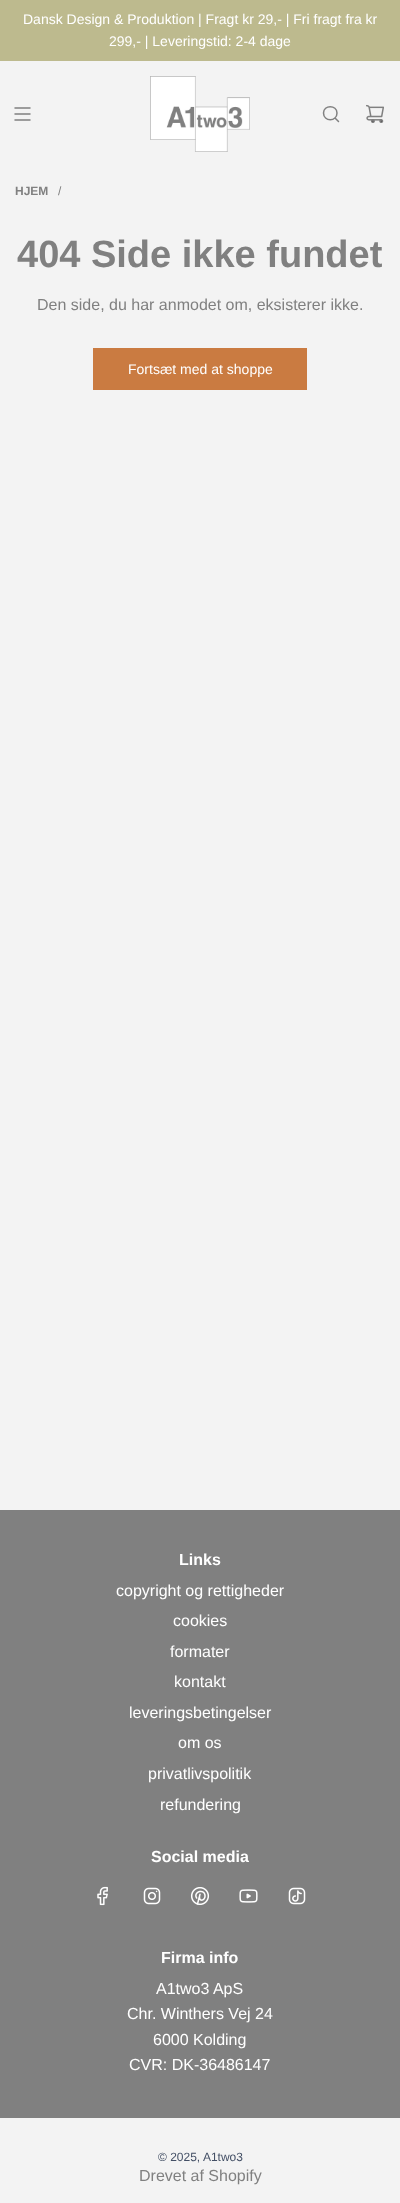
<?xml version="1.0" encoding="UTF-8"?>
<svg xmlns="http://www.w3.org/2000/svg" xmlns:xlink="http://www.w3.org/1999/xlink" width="400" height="2203">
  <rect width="100%" height="100%" fill="#f3f3f3" />
  <rect width="400" height="61" fill="#bdba8e" />
  <path d="M 15 108 h 15 m -15 6 h 15 m -15 6 h 15" fill="none" stroke="#808080" stroke-width="1.5" stroke-linecap="round" stroke-linejoin="round" />
  <image x="150" y="76" width="100" height="76" xlink:href="image1.png" />
  <path d="M 335 118 l 3.5 3.5 m -15 -8.5 c 0 9 13.5 9 13.5 0 c 0 -8.5 -13.5 -8.5 -13.5 0 z" fill="none" stroke="#808080" stroke-width="1.5" stroke-linecap="round" stroke-linejoin="round" />
  <image x="366" y="104" width="18" height="19" xlink:href="image2.png" />
  <rect x="93" y="348" width="214" height="42" fill="#ca7b41" />
  <rect y="1510" width="400" height="608" fill="#808080" />
  <image x="97" y="1886" width="11" height="20" xlink:href="image3.png" />
  <image x="143" y="1887" width="18" height="18" xlink:href="image4.png" />
  <image x="190" y="1887" width="20" height="18" xlink:href="image5.png" />
  <image x="239" y="1889" width="19" height="14" xlink:href="image6.png" />
  <image x="288" y="1887" width="18" height="18" xlink:href="image7.png" />
  <text x="23" y="24" style="font-family: Liberation Sans; font-size: 14px; fill: #ffffff">Dansk Design &amp; Produktion | Fragt kr 29,- | Fri fragt fra kr</text>
  <text x="109" y="46" style="font-family: Liberation Sans; font-size: 14px; fill: #ffffff">299,- | Leveringstid: 2-4 dage</text>
  <text x="15" y="195" style="font-family: Liberation Sans; font-size: 12px; font-weight: bold; fill: #808080">HJEM</text>
  <text x="58" y="195" style="font-family: Liberation Sans; font-size: 12px; fill: #808080">/</text>
  <text x="17" y="267" style="font-family: Liberation Sans; font-size: 38px; font-weight: bold; fill: #808080">404 Side ikke fundet</text>
  <text x="37" y="310" style="font-family: Liberation Sans; font-size: 16px; fill: #808080">Den side, du har anmodet om, eksisterer ikke.</text>
  <text x="128" y="374" style="font-family: Liberation Sans; font-size: 14px; fill: #ffffff">Fortsæt med at shoppe</text>
  <text x="179" y="1565" style="font-family: Liberation Sans; font-size: 16px; font-weight: bold; fill: #ffffff">Links</text>
  <text x="116" y="1596" style="font-family: Liberation Sans; font-size: 16px; fill: #ffffff">copyright og rettigheder</text>
  <text x="173" y="1626" style="font-family: Liberation Sans; font-size: 16px; fill: #ffffff">cookies</text>
  <text x="170" y="1657" style="font-family: Liberation Sans; font-size: 16px; fill: #ffffff">formater</text>
  <text x="174" y="1687" style="font-family: Liberation Sans; font-size: 16px; fill: #ffffff">kontakt</text>
  <text x="129" y="1718" style="font-family: Liberation Sans; font-size: 16px; fill: #ffffff">leveringsbetingelser</text>
  <text x="178" y="1748" style="font-family: Liberation Sans; font-size: 16px; fill: #ffffff">om os</text>
  <text x="148" y="1779" style="font-family: Liberation Sans; font-size: 16px; fill: #ffffff">privatlivspolitik</text>
  <text x="160" y="1810" style="font-family: Liberation Sans; font-size: 16px; fill: #ffffff">refundering</text>
  <text x="151" y="1862" style="font-family: Liberation Sans; font-size: 16px; font-weight: bold; fill: #ffffff">Social media</text>
  <text x="161" y="1963" style="font-family: Liberation Sans; font-size: 16px; font-weight: bold; fill: #ffffff">Firma info</text>
  <text x="156" y="1994" style="font-family: Liberation Sans; font-size: 16px; fill: #ffffff">A1two3 ApS</text>
  <text x="127" y="2019" style="font-family: Liberation Sans; font-size: 16px; fill: #ffffff">Chr. Winthers Vej 24</text>
  <text x="153" y="2045" style="font-family: Liberation Sans; font-size: 16px; fill: #ffffff">6000 Kolding</text>
  <text x="129" y="2070" style="font-family: Liberation Sans; font-size: 16px; fill: #ffffff">CVR: DK-36486147</text>
  <text x="158" y="2161" style="font-family: Liberation Sans; font-size: 12px; fill: #434f65">© 2025, A1two3</text>
  <text x="139" y="2181" style="font-family: Liberation Sans; font-size: 16px; fill: #808080">Drevet af Shopify</text>
</svg>
